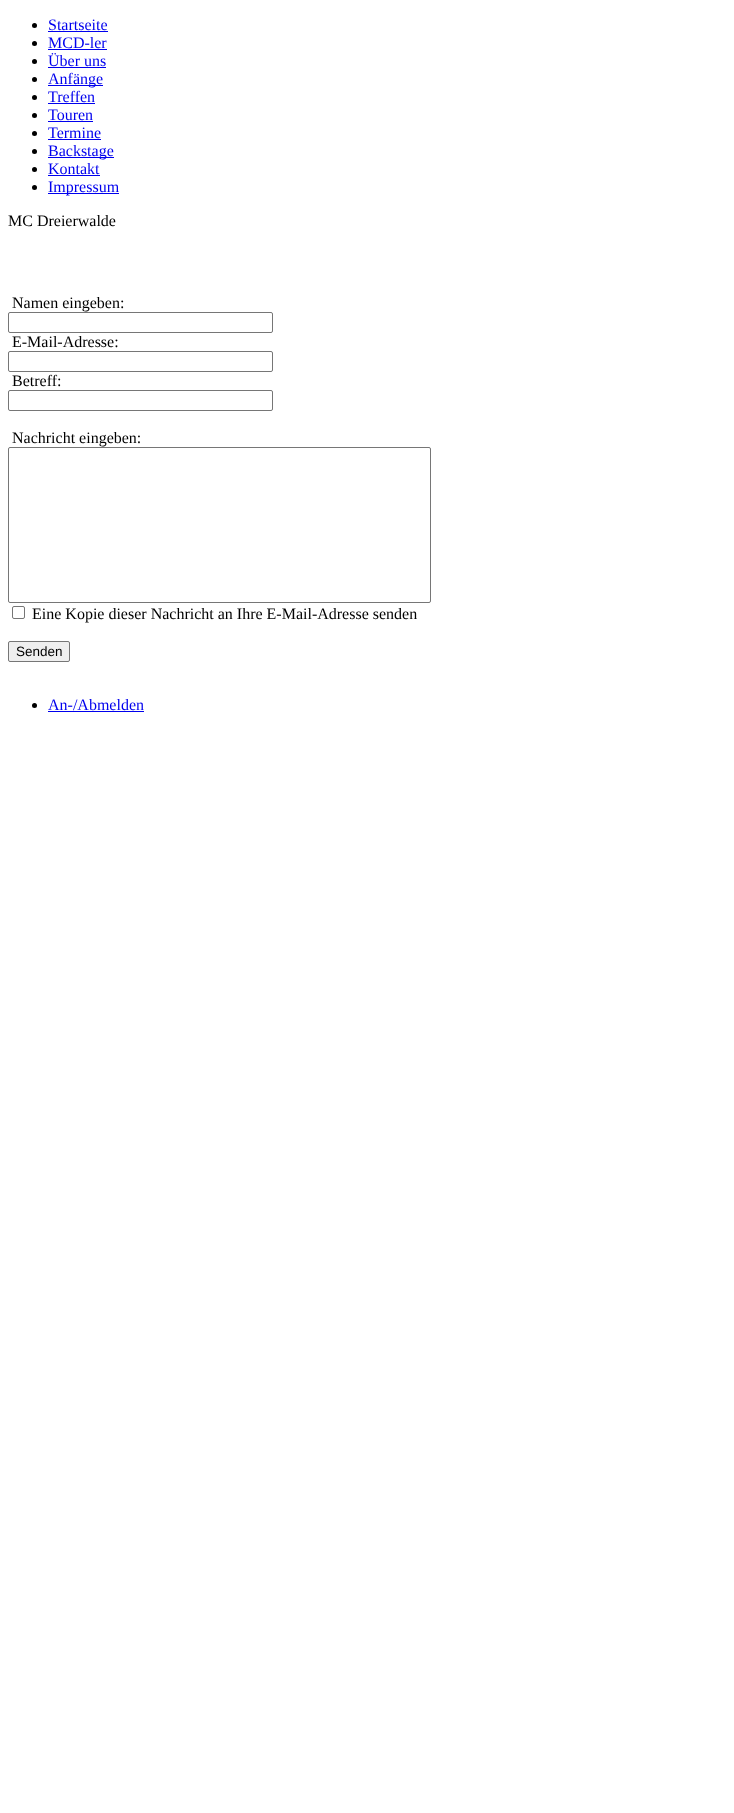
<?xml version="1.0" encoding="UTF-8"?>
<svg xmlns="http://www.w3.org/2000/svg" xmlns:xlink="http://www.w3.org/1999/xlink" width="734" height="1813">
  <rect width="100%" height="100%" fill="#ffffff" />
  <circle cx="34.5" cy="25.5" r="2.5" fill="#000000" />
  <rect x="48" y="31" width="60" height="1" fill="#0000ee" />
  <circle cx="34.5" cy="43.5" r="2.5" fill="#000000" />
  <rect x="48" y="49" width="59" height="1" fill="#0000ee" />
  <circle cx="34.5" cy="61.5" r="2.5" fill="#000000" />
  <rect x="48" y="67" width="58" height="1" fill="#0000ee" />
  <circle cx="34.5" cy="79.5" r="2.5" fill="#000000" />
  <rect x="48" y="85" width="55" height="1" fill="#0000ee" />
  <circle cx="34.5" cy="97.5" r="2.5" fill="#000000" />
  <rect x="48" y="103" width="47" height="1" fill="#0000ee" />
  <circle cx="34.5" cy="115.5" r="2.5" fill="#000000" />
  <rect x="48" y="121" width="45" height="1" fill="#0000ee" />
  <circle cx="34.5" cy="133.5" r="2.5" fill="#000000" />
  <rect x="48" y="139" width="53" height="1" fill="#0000ee" />
  <circle cx="34.5" cy="151.5" r="2.5" fill="#000000" />
  <rect x="48" y="157" width="66" height="1" fill="#0000ee" />
  <circle cx="34.5" cy="169.5" r="2.5" fill="#000000" />
  <rect x="48" y="175" width="52" height="1" fill="#0000ee" />
  <circle cx="34.5" cy="187.5" r="2.5" fill="#000000" />
  <rect x="48" y="193" width="71" height="1" fill="#0000ee" />
  <rect x="8.5" y="312.5" width="264" height="20" rx="1.5" fill="none" stroke="#767676" />
  <rect x="8.5" y="351.5" width="264" height="20" rx="1.5" fill="none" stroke="#767676" />
  <rect x="8.5" y="390.5" width="264" height="20" rx="1.5" fill="none" stroke="#767676" />
  <rect x="8.5" y="447.5" width="422" height="155" rx="1.5" fill="none" stroke="#767676" />
  <rect x="12.5" y="606.5" width="12" height="12" rx="1.5" fill="none" stroke="#767676" />
  <rect x="8.5" y="641.5" width="61" height="20" rx="1.5" fill="#efefef" stroke="#767676" />
  <circle cx="34.5" cy="705.5" r="2.5" fill="#000000" />
  <rect x="48" y="711" width="96" height="1" fill="#0000ee" />
  <text x="48" y="30" style="font-family: Liberation Serif; font-size: 16px; fill: #0000ee">Startseite</text>
  <text x="48" y="48" style="font-family: Liberation Serif; font-size: 16px; fill: #0000ee">MCD-ler</text>
  <text x="48" y="66" style="font-family: Liberation Serif; font-size: 16px; fill: #0000ee">Über uns</text>
  <text x="48" y="84" style="font-family: Liberation Serif; font-size: 16px; fill: #0000ee">Anfänge</text>
  <text x="48" y="102" style="font-family: Liberation Serif; font-size: 16px; fill: #0000ee">Treffen</text>
  <text x="48" y="120" style="font-family: Liberation Serif; font-size: 16px; fill: #0000ee">Touren</text>
  <text x="48" y="138" style="font-family: Liberation Serif; font-size: 16px; fill: #0000ee">Termine</text>
  <text x="48" y="156" style="font-family: Liberation Serif; font-size: 16px; fill: #0000ee">Backstage</text>
  <text x="48" y="174" style="font-family: Liberation Serif; font-size: 16px; fill: #0000ee">Kontakt</text>
  <text x="48" y="192" style="font-family: Liberation Serif; font-size: 16px; fill: #0000ee">Impressum</text>
  <text x="8" y="226" style="font-family: Liberation Serif; font-size: 16px; fill: #000000">MC Dreierwalde</text>
  <text x="12" y="308" style="font-family: Liberation Serif; font-size: 16px; fill: #000000">Namen eingeben:</text>
  <text x="12" y="347" style="font-family: Liberation Serif; font-size: 16px; fill: #000000">E-Mail-Adresse:</text>
  <text x="12" y="386" style="font-family: Liberation Serif; font-size: 16px; fill: #000000">Betreff:</text>
  <text x="12" y="443" style="font-family: Liberation Serif; font-size: 16px; fill: #000000">Nachricht eingeben:</text>
  <text x="32" y="619" style="font-family: Liberation Serif; font-size: 16px; fill: #000000">Eine Kopie dieser Nachricht an Ihre E-Mail-Adresse senden</text>
  <text x="16" y="656" style="font-family: Liberation Sans; font-size: 13.5px; fill: #000000">Senden</text>
  <text x="48" y="710" style="font-family: Liberation Serif; font-size: 16px; fill: #0000ee">An-/Abmelden</text>
</svg>
